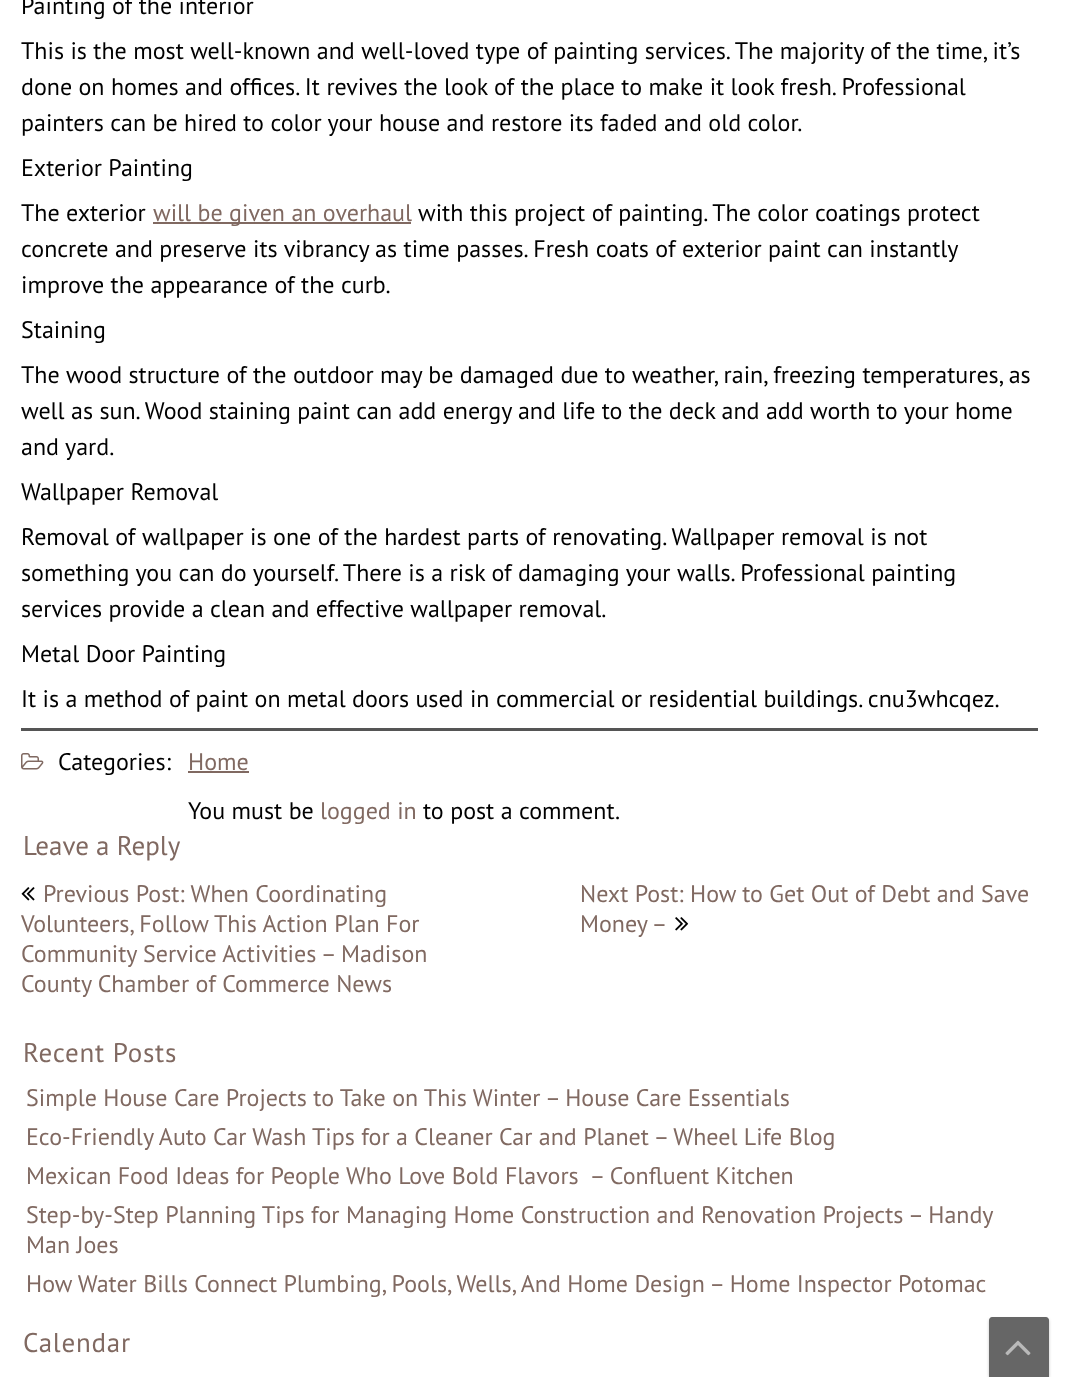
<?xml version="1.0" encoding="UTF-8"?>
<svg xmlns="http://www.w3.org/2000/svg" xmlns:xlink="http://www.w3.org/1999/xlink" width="1069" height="1377">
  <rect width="100%" height="100%" fill="#ffffff" />
  <rect x="153" y="222" width="258" height="2" fill="#806961" />
  <rect x="21" y="728" width="1017" height="3" fill="#555555" />
  <image x="21" y="753" width="23" height="17" xlink:href="image1.png" />
  <rect x="188" y="771" width="61" height="2" fill="#806961" />
  <image x="21" y="887" width="14" height="14" xlink:href="image2.png" />
  <image x="675" y="917" width="14" height="14" xlink:href="image3.png" />
  <rect x="989" y="1319" width="60" height="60" rx="3" fill="#1a1a1a" fill-opacity="0.25" filter="blur(1.5px)" />
  <path d="M 992 1317 h 54 c 1.5 0 3 1.5 3 3 v 57 h -60 v -57 c 0 -1.5 1.5 -3 3 -3 z" fill="#666666" />
  <image x="1005" y="1340" width="26" height="16" xlink:href="image4.png" />
  <text x="21" y="14" style="font-family: PT Sans; font-size: 24px; fill: #000000">Painting of the interior</text>
  <text x="21" y="59" style="font-family: PT Sans; font-size: 24px; fill: #000000">This is the most well-known and well-loved type of painting services. The majority of the time, it’s</text>
  <text x="21" y="95" style="font-family: PT Sans; font-size: 24px; fill: #000000">done on homes and offices. It revives the look of the place to make it look fresh. Professional</text>
  <text x="21" y="131" style="font-family: PT Sans; font-size: 24px; fill: #000000">painters can be hired to color your house and restore its faded and old color.</text>
  <text x="21" y="176" style="font-family: PT Sans; font-size: 24px; fill: #000000">Exterior Painting</text>
  <text x="21" y="221" style="font-family: PT Sans; font-size: 24px; fill: #000000">The exterior</text>
  <text x="153" y="221" style="font-family: PT Sans; font-size: 24px; fill: #806961">will be given an overhaul</text>
  <text x="418" y="221" style="font-family: PT Sans; font-size: 24px; fill: #000000">with this project of painting. The color coatings protect</text>
  <text x="21" y="257" style="font-family: PT Sans; font-size: 24px; fill: #000000">concrete and preserve its vibrancy as time passes. Fresh coats of exterior paint can instantly</text>
  <text x="21" y="293" style="font-family: PT Sans; font-size: 24px; fill: #000000">improve the appearance of the curb.</text>
  <text x="21" y="338" style="font-family: PT Sans; font-size: 24px; fill: #000000">Staining</text>
  <text x="21" y="383" style="font-family: PT Sans; font-size: 24px; fill: #000000">The wood structure of the outdoor may be damaged due to weather, rain, freezing temperatures, as</text>
  <text x="21" y="419" style="font-family: PT Sans; font-size: 24px; fill: #000000">well as sun. Wood staining paint can add energy and life to the deck and add worth to your home</text>
  <text x="21" y="455" style="font-family: PT Sans; font-size: 24px; fill: #000000">and yard.</text>
  <text x="21" y="500" style="font-family: PT Sans; font-size: 24px; fill: #000000">Wallpaper Removal</text>
  <text x="21" y="545" style="font-family: PT Sans; font-size: 24px; fill: #000000">Removal of wallpaper is one of the hardest parts of renovating. Wallpaper removal is not</text>
  <text x="21" y="581" style="font-family: PT Sans; font-size: 24px; fill: #000000">something you can do yourself. There is a risk of damaging your walls. Professional painting</text>
  <text x="21" y="617" style="font-family: PT Sans; font-size: 24px; fill: #000000">services provide a clean and effective wallpaper removal.</text>
  <text x="21" y="662" style="font-family: PT Sans; font-size: 24px; fill: #000000">Metal Door Painting</text>
  <text x="21" y="707" style="font-family: PT Sans; font-size: 24px; fill: #000000">It is a method of paint on metal doors used in commercial or residential buildings. cnu3whcqez.</text>
  <text x="58" y="770" style="font-family: PT Sans; font-size: 24px; fill: #000000">Categories:</text>
  <text x="188" y="770" style="font-family: PT Sans; font-size: 24px; fill: #806961">Home</text>
  <text x="188" y="819" style="font-family: PT Sans; font-size: 24px; fill: #000000">You must be</text>
  <text x="320" y="819" style="font-family: PT Sans; font-size: 24px; fill: #806961">logged in</text>
  <text x="423" y="819" style="font-family: PT Sans; font-size: 24px; fill: #000000">to post a comment.</text>
  <text x="23" y="855" style="font-family: PT Sans; font-size: 27px; fill: #806961">Leave a Reply</text>
  <text x="43" y="902" style="font-family: PT Sans; font-size: 24px; fill: #806961">Previous Post: When Coordinating</text>
  <text x="21" y="932" style="font-family: PT Sans; font-size: 24px; fill: #806961">Volunteers, Follow This Action Plan For</text>
  <text x="21" y="962" style="font-family: PT Sans; font-size: 24px; fill: #806961">Community Service Activities – Madison</text>
  <text x="21" y="992" style="font-family: PT Sans; font-size: 24px; fill: #806961">County Chamber of Commerce News</text>
  <text x="580" y="902" style="font-family: PT Sans; font-size: 24px; fill: #806961">Next Post: How to Get Out of Debt and Save</text>
  <text x="580" y="932" style="font-family: PT Sans; font-size: 24px; fill: #806961">Money –</text>
  <text x="23" y="1062" style="font-family: PT Sans; font-size: 27px; letter-spacing: 0.75px; fill: #806961">Recent Posts</text>
  <text x="26" y="1106" style="font-family: PT Sans; font-size: 24px; fill: #806961">Simple House Care Projects to Take on This Winter – House Care Essentials</text>
  <text x="26" y="1145" style="font-family: PT Sans; font-size: 24px; fill: #806961">Eco-Friendly Auto Car Wash Tips for a Cleaner Car and Planet – Wheel Life Blog</text>
  <text x="26" y="1184" style="font-family: PT Sans; font-size: 24px; fill: #806961" xml:space="preserve">Mexican Food Ideas for People Who Love Bold Flavors  – Confluent Kitchen</text>
  <text x="26" y="1223" style="font-family: PT Sans; font-size: 24px; fill: #806961">Step-by-Step Planning Tips for Managing Home Construction and Renovation Projects – Handy</text>
  <text x="26" y="1253" style="font-family: PT Sans; font-size: 24px; fill: #806961">Man Joes</text>
  <text x="26" y="1292" style="font-family: PT Sans; font-size: 24px; fill: #806961">How Water Bills Connect Plumbing, Pools, Wells, And Home Design – Home Inspector Potomac</text>
  <text x="23" y="1352" style="font-family: PT Sans; font-size: 27px; letter-spacing: 0.75px; fill: #806961">Calendar</text>
</svg>
